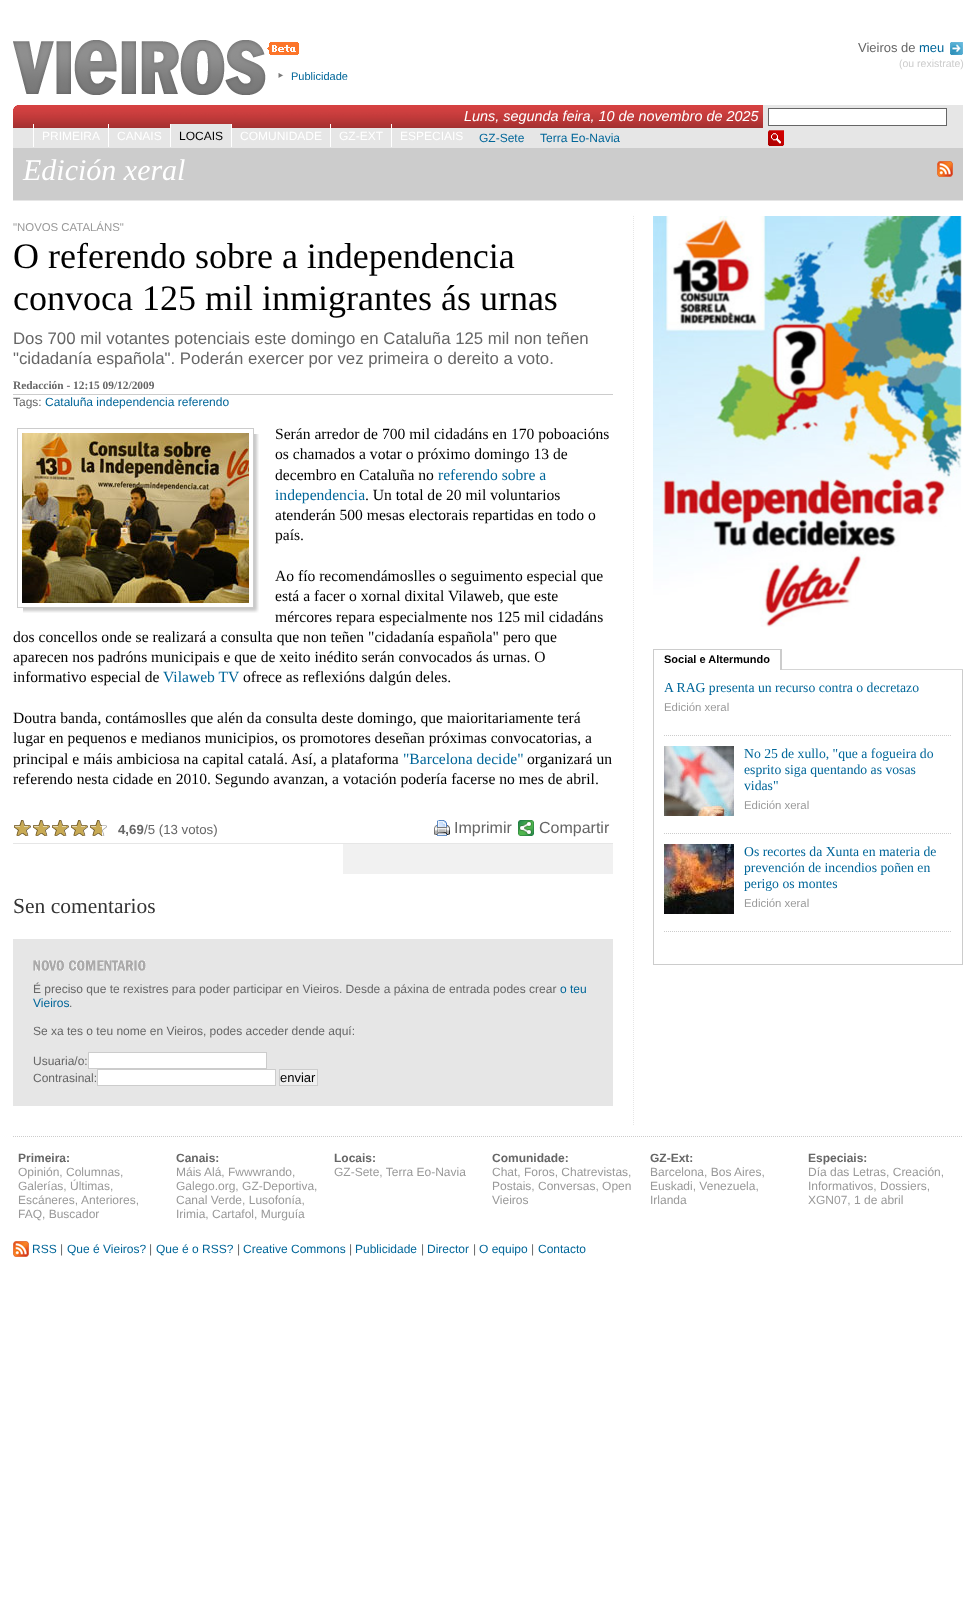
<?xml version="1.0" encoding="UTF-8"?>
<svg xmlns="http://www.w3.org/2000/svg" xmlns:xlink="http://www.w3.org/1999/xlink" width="976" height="1611">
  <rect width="100%" height="100%" fill="#ffffff" />
  <image x="13" y="40" width="286" height="55" xlink:href="image1.png" />
  <image x="950" y="42" width="13" height="13" xlink:href="image2.png" />
  <image x="278" y="73" width="6" height="5" xlink:href="image3.png" />
  <image x="13" y="105" width="750" height="23" xlink:href="image4.png" />
  <rect x="763" y="105" width="200" height="23" fill="#e6e6e6" />
  <rect x="768.5" y="108.5" width="178" height="17" fill="#ffffff" stroke="#666666" />
  <rect x="13" y="128" width="950" height="20" fill="#e6e6e6" />
  <image x="768" y="130" width="16" height="16" xlink:href="image5.png" />
  <rect x="33" y="124" width="1" height="23" fill="#ffffff" />
  <rect x="108" y="124" width="1" height="23" fill="#ffffff" />
  <rect x="170" y="124" width="1" height="23" fill="#ffffff" />
  <rect x="171" y="124" width="60" height="4" fill="#e6e6e6" />
  <rect x="231" y="124" width="1" height="23" fill="#ffffff" />
  <rect x="330" y="124" width="1" height="23" fill="#ffffff" />
  <rect x="391" y="124" width="1" height="23" fill="#ffffff" />
  <rect x="13" y="148" width="950" height="52" fill="#cccccc" />
  <rect x="13" y="200" width="950" height="1" fill="#e6e6e6" />
  <image x="937" y="161" width="16" height="16" xlink:href="image6.png" />
  <path d="M 633.5 216 v 910" fill="none" stroke="#e6e6e6" stroke-dasharray="1 1" />
  <rect x="13" y="394" width="600" height="1" fill="#cccccc" />
  <image x="23" y="434" width="236" height="179" xlink:href="image7.png" />
  <rect x="17.5" y="428.5" width="236" height="179" fill="none" stroke="#cccccc" />
  <image x="22" y="433" width="227" height="170" xlink:href="image8.png" />
  <rect x="13" y="843" width="600" height="1" fill="#e6e6e6" />
  <image x="102" y="820" width="5" height="16" xlink:href="image9.png" />
  <image x="14" y="820" width="88" height="16" xlink:href="image10.png" />
  <image x="434" y="820" width="16" height="16" xlink:href="image11.png" />
  <image x="518" y="820" width="16" height="16" xlink:href="image12.png" />
  <rect x="343" y="844" width="270" height="30" fill="#f1f1f1" />
  <rect x="13" y="939" width="600" height="167" fill="#e6e6e6" />
  <image x="33" y="960" width="113" height="11" xlink:href="image13.png" />
  <rect x="88.5" y="1052.5" width="178" height="16" fill="#ffffff" stroke="#cccccc" />
  <rect x="97.5" y="1069.5" width="178" height="16" fill="#ffffff" stroke="#cccccc" />
  <rect x="279.5" y="1069.5" width="38" height="16" fill="#efefef" stroke="#cccccc" />
  <image x="653" y="216" width="309" height="411" xlink:href="image14.png" />
  <rect x="782" y="669" width="181" height="1" fill="#d5d5d5" />
  <rect x="653" y="649" width="129" height="1" fill="#cccccc" />
  <rect x="780" y="649" width="2" height="21" fill="#cccccc" />
  <rect x="653" y="649" width="1" height="21" fill="#cccccc" />
  <rect x="962" y="670" width="1" height="295" fill="#cccccc" />
  <rect x="653" y="964" width="310" height="1" fill="#cccccc" />
  <rect x="653" y="670" width="1" height="295" fill="#cccccc" />
  <path d="M 664 735.5 h 288" fill="none" stroke="#cccccc" stroke-dasharray="1 1" />
  <path d="M 664 833.5 h 288" fill="none" stroke="#cccccc" stroke-dasharray="1 1" />
  <image x="664" y="746" width="70" height="70" xlink:href="image15.png" />
  <path d="M 664 931.5 h 288" fill="none" stroke="#cccccc" stroke-dasharray="1 1" />
  <image x="664" y="844" width="70" height="70" xlink:href="image16.png" />
  <path d="M 13 1136.5 h 950" fill="none" stroke="#cccccc" stroke-dasharray="1 1" />
  <image x="13" y="1241" width="16" height="16" xlink:href="image17.png" />
  <text x="858" y="52" style="font-family: Liberation Sans; font-size: 13px; fill: #666666">Vieiros de</text>
  <text x="919" y="52" style="font-family: Liberation Sans; font-size: 13px; fill: #006699">meu</text>
  <text x="899" y="67" style="font-family: Liberation Sans; font-size: 10.5px; fill: #cccccc">(ou rexistrate)</text>
  <text x="291" y="80" style="font-family: Liberation Sans; font-size: 11px; fill: #006699">Publicidade</text>
  <text x="464" y="121" style="font-family: Liberation Sans; font-size: 14.4px; font-style: italic; fill: #ffffff">Luns, segunda feira, 10 de novembro de 2025</text>
  <text x="42" y="140" style="font-family: Liberation Sans; font-size: 12px; fill: #ffffff">PRIMEIRA</text>
  <text x="117" y="140" style="font-family: Liberation Sans; font-size: 12px; fill: #ffffff">CANAIS</text>
  <text x="179" y="140" style="font-family: Liberation Sans; font-size: 12px; fill: #000000">LOCAIS</text>
  <text x="240" y="140" style="font-family: Liberation Sans; font-size: 12px; fill: #ffffff">COMUNIDADE</text>
  <text x="339" y="140" style="font-family: Liberation Sans; font-size: 12px; fill: #ffffff">GZ-EXT</text>
  <text x="400" y="140" style="font-family: Liberation Sans; font-size: 12px; fill: #ffffff">ESPECIAIS</text>
  <text x="479" y="142" style="font-family: Liberation Sans; font-size: 12px; fill: #006699">GZ-Sete</text>
  <text x="540" y="142" style="font-family: Liberation Sans; font-size: 12px; fill: #006699">Terra Eo-Navia</text>
  <text x="23" y="180" style="font-family: Liberation Serif; font-size: 30px; font-style: italic; fill: #ffffff">Edición xeral</text>
  <text x="13" y="231" style="font-family: Liberation Sans; font-size: 11.4px; fill: #999999">"NOVOS CATALÁNS"</text>
  <text x="13" y="268" style="font-family: Liberation Serif; font-size: 36px; fill: #000000">O referendo sobre a independencia</text>
  <text x="13" y="310" style="font-family: Liberation Serif; font-size: 36px; fill: #000000">convoca 125 mil inmigrantes ás urnas</text>
  <text x="13" y="344" style="font-family: Liberation Sans; font-size: 16.8px; fill: #666666">Dos 700 mil votantes potenciais este domingo en Cataluña 125 mil non teñen</text>
  <text x="13" y="364" style="font-family: Liberation Sans; font-size: 16.8px; fill: #666666">"cidadanía española". Poderán exercer por vez primeira o dereito a voto.</text>
  <text x="13" y="389" style="font-family: Liberation Serif; font-size: 11.4px; font-weight: bold; fill: #666666">Redacción - 12:15 09/12/2009</text>
  <text x="13" y="406" style="font-family: Liberation Sans; font-size: 12px; fill: #666666">Tags:</text>
  <text x="45" y="406" style="font-family: Liberation Sans; font-size: 12px; fill: #006699">Cataluña independencia referendo</text>
  <text x="275" y="439" style="font-family: Liberation Serif; font-size: 15.6px; fill: #000000">Serán arredor de 700 mil cidadáns en 170 poboacións</text>
  <text x="275" y="459" style="font-family: Liberation Serif; font-size: 15.6px; fill: #000000">os chamados a votar o próximo domingo 13 de</text>
  <text x="275" y="480" style="font-family: Liberation Serif; font-size: 15.6px; fill: #000000">decembro en Cataluña no</text>
  <text x="438" y="480" style="font-family: Liberation Serif; font-size: 15.6px; fill: #006699">referendo sobre a</text>
  <text x="275" y="500" style="font-family: Liberation Serif; font-size: 15.6px; fill: #006699">independencia</text>
  <text x="365" y="500" style="font-family: Liberation Serif; font-size: 15.6px; fill: #000000">. Un total de 20 mil voluntarios</text>
  <text x="275" y="520" style="font-family: Liberation Serif; font-size: 15.6px; fill: #000000">atenderán 500 mesas electorais repartidas en todo o</text>
  <text x="275" y="540" style="font-family: Liberation Serif; font-size: 15.6px; fill: #000000">país.</text>
  <text x="275" y="581" style="font-family: Liberation Serif; font-size: 15.6px; fill: #000000">Ao fío recomendámoslles o seguimento especial que</text>
  <text x="275" y="601" style="font-family: Liberation Serif; font-size: 15.6px; fill: #000000">está a facer o xornal dixital Vilaweb, que este</text>
  <text x="275" y="622" style="font-family: Liberation Serif; font-size: 15.6px; fill: #000000">mércores repara especialmente nos 125 mil cidadáns</text>
  <text x="13" y="642" style="font-family: Liberation Serif; font-size: 15.6px; fill: #000000">dos concellos onde se realizará a consulta que non teñen "cidadanía española" pero que</text>
  <text x="13" y="662" style="font-family: Liberation Serif; font-size: 15.6px; fill: #000000">aparecen nos padróns municipais e que de xeito inédito serán convocados ás urnas. O</text>
  <text x="13" y="682" style="font-family: Liberation Serif; font-size: 15.6px; fill: #000000">informativo especial de</text>
  <text x="163" y="682" style="font-family: Liberation Serif; font-size: 15.6px; fill: #006699">Vilaweb TV</text>
  <text x="243" y="682" style="font-family: Liberation Serif; font-size: 15.6px; fill: #000000">ofrece as reflexións dalgún deles.</text>
  <text x="13" y="723" style="font-family: Liberation Serif; font-size: 15.6px; fill: #000000">Doutra banda, contámoslles que alén da consulta deste domingo, que maioritariamente terá</text>
  <text x="13" y="743" style="font-family: Liberation Serif; font-size: 15.6px; fill: #000000">lugar en pequenos e medianos municipios, os promotores deseñan próximas convocatorias, a</text>
  <text x="13" y="764" style="font-family: Liberation Serif; font-size: 15.6px; fill: #000000">principal e máis ambiciosa na capital catalá. Así, a plataforma</text>
  <text x="403" y="764" style="font-family: Liberation Serif; font-size: 15.6px; fill: #006699">"Barcelona decide"</text>
  <text x="527" y="764" style="font-family: Liberation Serif; font-size: 15.6px; fill: #000000">organizará un</text>
  <text x="13" y="784" style="font-family: Liberation Serif; font-size: 15.6px; fill: #000000">referendo nesta cidade en 2010. Segundo avanzan, a votación podería facerse no mes de abril.</text>
  <text x="118" y="834" style="font-family: Liberation Sans; font-size: 13.25px; font-weight: bold; fill: #666666">4,69</text>
  <text x="144" y="834" style="font-family: Liberation Sans; font-size: 13.25px; fill: #666666">/5 (13 votos)</text>
  <text x="454" y="833" style="font-family: Liberation Sans; font-size: 16px; fill: #666666">Imprimir</text>
  <text x="539" y="833" style="font-family: Liberation Sans; font-size: 16px; fill: #666666">Compartir</text>
  <text x="13" y="913" style="font-family: Liberation Serif; font-size: 21.5px; fill: #333333">Sen comentarios</text>
  <text x="33" y="993" style="font-family: Liberation Sans; font-size: 12px; fill: #666666">É preciso que te rexistres para poder participar en Vieiros. Desde a páxina de entrada podes crear</text>
  <text x="560" y="993" style="font-family: Liberation Sans; font-size: 12px; fill: #006699">o teu</text>
  <text x="33" y="1007" style="font-family: Liberation Sans; font-size: 12px; fill: #006699">Vieiros</text>
  <text x="69" y="1007" style="font-family: Liberation Sans; font-size: 12px; fill: #666666">.</text>
  <text x="33" y="1035" style="font-family: Liberation Sans; font-size: 12px; fill: #666666">Se xa tes o teu nome en Vieiros, podes acceder dende aquí:</text>
  <text x="33" y="1065" style="font-family: Liberation Sans; font-size: 12px; fill: #666666">Usuaria/o:</text>
  <text x="33" y="1082" style="font-family: Liberation Sans; font-size: 12px; fill: #666666">Contrasinal:</text>
  <text x="280" y="1082" style="font-family: Liberation Sans; font-size: 13px; fill: #000000">enviar</text>
  <text x="664" y="663" style="font-family: Liberation Sans; font-size: 11px; font-weight: bold; fill: #000000">Social e Altermundo</text>
  <text x="664" y="692" style="font-family: Liberation Serif; font-size: 13.7px; fill: #006699">A RAG presenta un recurso contra o decretazo</text>
  <text x="664" y="711" style="font-family: Liberation Sans; font-size: 11.4px; fill: #999999">Edición xeral</text>
  <text x="744" y="758" style="font-family: Liberation Serif; font-size: 13.7px; fill: #006699">No 25 de xullo, "que a fogueira do</text>
  <text x="744" y="774" style="font-family: Liberation Serif; font-size: 13.7px; fill: #006699">esprito siga quentando as vosas</text>
  <text x="744" y="790" style="font-family: Liberation Serif; font-size: 13.7px; fill: #006699">vidas"</text>
  <text x="744" y="809" style="font-family: Liberation Sans; font-size: 11.4px; fill: #999999">Edición xeral</text>
  <text x="744" y="856" style="font-family: Liberation Serif; font-size: 13.7px; fill: #006699">Os recortes da Xunta en materia de</text>
  <text x="744" y="872" style="font-family: Liberation Serif; font-size: 13.7px; fill: #006699">prevención de incendios poñen en</text>
  <text x="744" y="888" style="font-family: Liberation Serif; font-size: 13.7px; fill: #006699">perigo os montes</text>
  <text x="744" y="907" style="font-family: Liberation Sans; font-size: 11.4px; fill: #999999">Edición xeral</text>
  <text x="18" y="1162" style="font-family: Liberation Sans; font-size: 12px; font-weight: bold; fill: #666666">Primeira:</text>
  <text x="18" y="1176" style="font-family: Liberation Sans; font-size: 12px; fill: #999999">Opinión, Columnas,</text>
  <text x="18" y="1190" style="font-family: Liberation Sans; font-size: 12px; fill: #999999">Galerías, Últimas,</text>
  <text x="18" y="1204" style="font-family: Liberation Sans; font-size: 12px; fill: #999999">Escáneres,</text>
  <text x="81" y="1204" style="font-family: Liberation Sans; font-size: 12px; fill: #999999">Anteriores,</text>
  <text x="18" y="1218" style="font-family: Liberation Sans; font-size: 12px; fill: #999999">FAQ, Buscador</text>
  <text x="176" y="1162" style="font-family: Liberation Sans; font-size: 12px; font-weight: bold; fill: #666666">Canais:</text>
  <text x="176" y="1176" style="font-family: Liberation Sans; font-size: 12px; fill: #999999">Máis Alá, Fwwwrando,</text>
  <text x="176" y="1190" style="font-family: Liberation Sans; font-size: 12px; fill: #999999">Galego.org, GZ-Deportiva,</text>
  <text x="176" y="1204" style="font-family: Liberation Sans; font-size: 12px; fill: #999999">Canal Verde, Lusofonía,</text>
  <text x="176" y="1218" style="font-family: Liberation Sans; font-size: 12px; fill: #999999">Irimia, Cartafol, Murguía</text>
  <text x="334" y="1162" style="font-family: Liberation Sans; font-size: 12px; font-weight: bold; fill: #666666">Locais:</text>
  <text x="334" y="1176" style="font-family: Liberation Sans; font-size: 12px; fill: #999999">GZ-Sete, Terra Eo-Navia</text>
  <text x="492" y="1162" style="font-family: Liberation Sans; font-size: 12px; font-weight: bold; fill: #666666">Comunidade:</text>
  <text x="492" y="1176" style="font-family: Liberation Sans; font-size: 12px; fill: #999999">Chat, Foros, Chatrevistas,</text>
  <text x="492" y="1190" style="font-family: Liberation Sans; font-size: 12px; fill: #999999">Postais, Conversas, Open</text>
  <text x="492" y="1204" style="font-family: Liberation Sans; font-size: 12px; fill: #999999">Vieiros</text>
  <text x="650" y="1162" style="font-family: Liberation Sans; font-size: 12px; font-weight: bold; fill: #666666">GZ-Ext:</text>
  <text x="650" y="1176" style="font-family: Liberation Sans; font-size: 12px; fill: #999999">Barcelona, Bos Aires,</text>
  <text x="650" y="1190" style="font-family: Liberation Sans; font-size: 12px; fill: #999999">Euskadi, Venezuela,</text>
  <text x="650" y="1204" style="font-family: Liberation Sans; font-size: 12px; fill: #999999">Irlanda</text>
  <text x="808" y="1162" style="font-family: Liberation Sans; font-size: 12px; font-weight: bold; fill: #666666">Especiais:</text>
  <text x="808" y="1176" style="font-family: Liberation Sans; font-size: 12px; fill: #999999">Día das Letras, Creación,</text>
  <text x="808" y="1190" style="font-family: Liberation Sans; font-size: 12px; fill: #999999">Informativos, Dossiers,</text>
  <text x="808" y="1204" style="font-family: Liberation Sans; font-size: 12px; fill: #999999">XGN07, 1 de abril</text>
  <text x="32" y="1253" style="font-family: Liberation Sans; font-size: 12px; fill: #006699">RSS</text>
  <text x="60" y="1253" style="font-family: Liberation Sans; font-size: 12px; fill: #666666">|</text>
  <text x="67" y="1253" style="font-family: Liberation Sans; font-size: 12px; fill: #006699">Que é Vieiros?</text>
  <text x="149" y="1253" style="font-family: Liberation Sans; font-size: 12px; fill: #666666">|</text>
  <text x="156" y="1253" style="font-family: Liberation Sans; font-size: 12px; fill: #006699">Que é o RSS?</text>
  <text x="237" y="1253" style="font-family: Liberation Sans; font-size: 12px; fill: #666666">|</text>
  <text x="243" y="1253" style="font-family: Liberation Sans; font-size: 12px; fill: #006699">Creative Commons</text>
  <text x="349" y="1253" style="font-family: Liberation Sans; font-size: 12px; fill: #666666">|</text>
  <text x="355" y="1253" style="font-family: Liberation Sans; font-size: 12px; fill: #006699">Publicidade</text>
  <text x="421" y="1253" style="font-family: Liberation Sans; font-size: 12px; fill: #666666">|</text>
  <text x="427" y="1253" style="font-family: Liberation Sans; font-size: 12px; fill: #006699">Director</text>
  <text x="473" y="1253" style="font-family: Liberation Sans; font-size: 12px; fill: #666666">|</text>
  <text x="479" y="1253" style="font-family: Liberation Sans; font-size: 12px; fill: #006699">O equipo</text>
  <text x="531" y="1253" style="font-family: Liberation Sans; font-size: 12px; fill: #666666">|</text>
  <text x="538" y="1253" style="font-family: Liberation Sans; font-size: 12px; fill: #006699">Contacto</text>
</svg>
